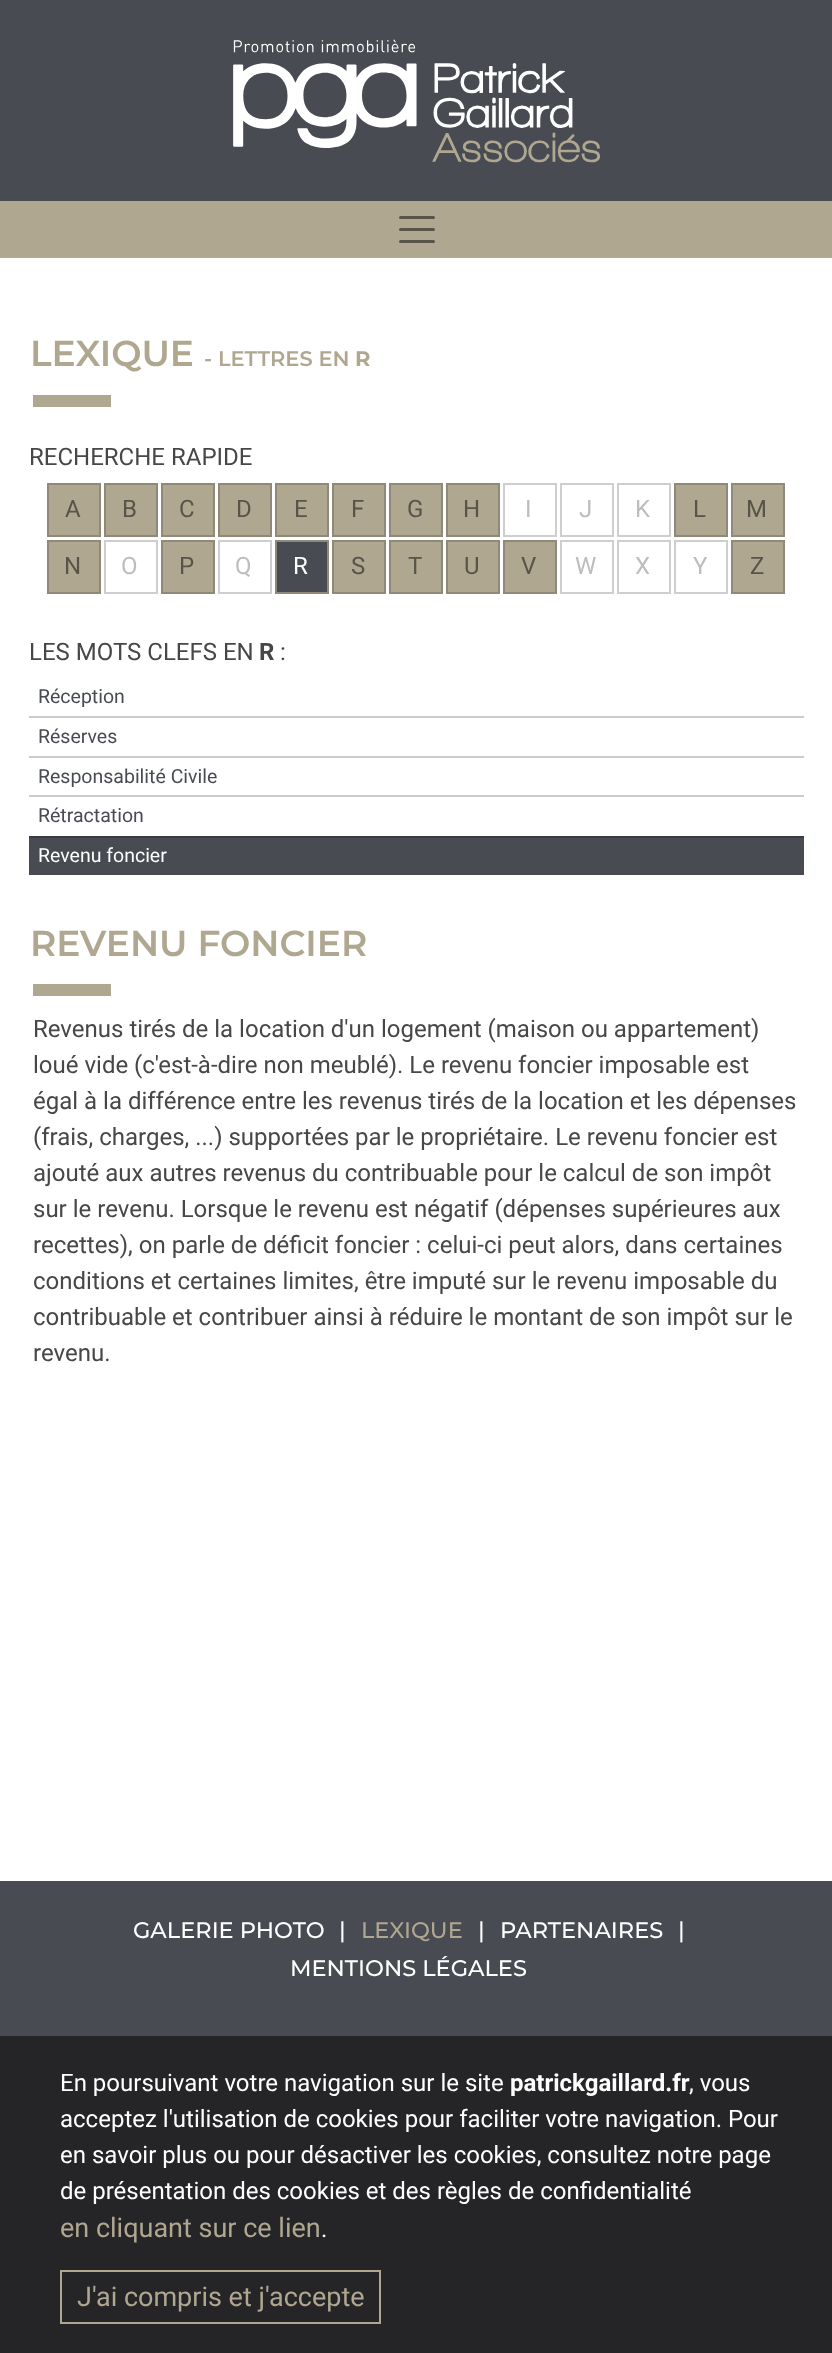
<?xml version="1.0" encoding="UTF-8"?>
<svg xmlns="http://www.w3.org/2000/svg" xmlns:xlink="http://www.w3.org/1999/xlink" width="832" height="2353">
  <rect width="100%" height="100%" fill="#ffffff" />
  <rect width="832" height="201" fill="#494b52" />
  <image x="233" y="39" width="367" height="124" xlink:href="image1.png" />
  <rect y="201" width="832" height="57" fill="#b0a791" />
  <path d="M 400.5 217.5 h 33 m -33 12 h 33 m -33 12 h 33" fill="none" stroke="#585449" stroke-width="3" stroke-linecap="round" />
  <rect x="33" y="395" width="78" height="12" fill="#b0a791" />
  <rect x="48" y="484" width="52" height="52" fill="#b0a791" stroke="#8f8979" stroke-width="2" />
  <rect x="105" y="484" width="52" height="52" fill="#b0a791" stroke="#8f8979" stroke-width="2" />
  <rect x="162" y="484" width="52" height="52" fill="#b0a791" stroke="#8f8979" stroke-width="2" />
  <rect x="219" y="484" width="52" height="52" fill="#b0a791" stroke="#8f8979" stroke-width="2" />
  <rect x="276" y="484" width="52" height="52" fill="#b0a791" stroke="#8f8979" stroke-width="2" />
  <rect x="333" y="484" width="52" height="52" fill="#b0a791" stroke="#8f8979" stroke-width="2" />
  <rect x="390" y="484" width="52" height="52" fill="#b0a791" stroke="#8f8979" stroke-width="2" />
  <rect x="447" y="484" width="52" height="52" fill="#b0a791" stroke="#8f8979" stroke-width="2" />
  <rect x="504" y="484" width="52" height="52" fill="none" stroke="#cecece" stroke-width="2" />
  <rect x="561" y="484" width="52" height="52" fill="none" stroke="#cecece" stroke-width="2" />
  <rect x="618" y="484" width="52" height="52" fill="none" stroke="#cecece" stroke-width="2" />
  <rect x="675" y="484" width="52" height="52" fill="#b0a791" stroke="#8f8979" stroke-width="2" />
  <rect x="732" y="484" width="52" height="52" fill="#b0a791" stroke="#8f8979" stroke-width="2" />
  <rect x="48" y="541" width="52" height="52" fill="#b0a791" stroke="#8f8979" stroke-width="2" />
  <rect x="105" y="541" width="52" height="52" fill="none" stroke="#cecece" stroke-width="2" />
  <rect x="162" y="541" width="52" height="52" fill="#b0a791" stroke="#8f8979" stroke-width="2" />
  <rect x="219" y="541" width="52" height="52" fill="none" stroke="#cecece" stroke-width="2" />
  <rect x="276" y="541" width="52" height="52" fill="#494b52" stroke="#8f8979" stroke-width="2" />
  <rect x="333" y="541" width="52" height="52" fill="#b0a791" stroke="#8f8979" stroke-width="2" />
  <rect x="390" y="541" width="52" height="52" fill="#b0a791" stroke="#8f8979" stroke-width="2" />
  <rect x="447" y="541" width="52" height="52" fill="#b0a791" stroke="#8f8979" stroke-width="2" />
  <rect x="504" y="541" width="52" height="52" fill="#b0a791" stroke="#8f8979" stroke-width="2" />
  <rect x="561" y="541" width="52" height="52" fill="none" stroke="#cecece" stroke-width="2" />
  <rect x="618" y="541" width="52" height="52" fill="none" stroke="#cecece" stroke-width="2" />
  <rect x="675" y="541" width="52" height="52" fill="none" stroke="#cecece" stroke-width="2" />
  <rect x="732" y="541" width="52" height="52" fill="#b0a791" stroke="#8f8979" stroke-width="2" />
  <rect x="29" y="716" width="775" height="2" fill="#cccccc" />
  <rect x="29" y="756" width="775" height="2" fill="#cccccc" />
  <rect x="29" y="795" width="775" height="2" fill="#cccccc" />
  <rect x="29" y="838" width="775" height="37" fill="#494b52" />
  <rect x="29" y="836" width="775" height="2" fill="#3a3c42" />
  <rect x="33" y="984" width="78" height="12" fill="#b0a791" />
  <rect y="1881" width="832" height="155" fill="#494b52" />
  <rect y="2036" width="832" height="317" fill="#252527" />
  <rect x="61" y="2271" width="319" height="52" fill="none" stroke="#b0a791" stroke-width="2" />
  <text x="30" y="366" style="font-family: Montserrat; font-size: 36px; font-weight: 600; fill: #b0a791">LEXIQUE</text>
  <text x="204" y="366" style="font-family: Montserrat; font-size: 21px; font-weight: 600; fill: #b0a791">- LETTRES EN</text>
  <text x="355" y="366" style="font-family: Montserrat; font-size: 21px; font-weight: bold; fill: #b0a791">R</text>
  <text x="29" y="465" style="font-family: Roboto; font-size: 24px; fill: #474747">RECHERCHE RAPIDE</text>
  <text x="65" y="517" style="font-family: Roboto; font-size: 24px; fill: #585449">A</text>
  <text x="122" y="517" style="font-family: Roboto; font-size: 24px; fill: #585449">B</text>
  <text x="179" y="517" style="font-family: Roboto; font-size: 24px; fill: #585449">C</text>
  <text x="236" y="517" style="font-family: Roboto; font-size: 24px; fill: #585449">D</text>
  <text x="294" y="517" style="font-family: Roboto; font-size: 24px; fill: #585449">E</text>
  <text x="351" y="517" style="font-family: Roboto; font-size: 24px; fill: #585449">F</text>
  <text x="407" y="517" style="font-family: Roboto; font-size: 24px; fill: #585449">G</text>
  <text x="463" y="517" style="font-family: Roboto; font-size: 24px; fill: #585449">H</text>
  <text x="525" y="517" style="font-family: Roboto; font-size: 24px; fill: #bdbdbd">I</text>
  <text x="579" y="517" style="font-family: Roboto; font-size: 24px; fill: #bdbdbd">J</text>
  <text x="635" y="517" style="font-family: Roboto; font-size: 24px; fill: #bdbdbd">K</text>
  <text x="693" y="517" style="font-family: Roboto; font-size: 24px; fill: #585449">L</text>
  <text x="746" y="517" style="font-family: Roboto; font-size: 24px; fill: #585449">M</text>
  <text x="64" y="574" style="font-family: Roboto; font-size: 24px; fill: #585449">N</text>
  <text x="121" y="574" style="font-family: Roboto; font-size: 24px; fill: #bdbdbd">O</text>
  <text x="179" y="574" style="font-family: Roboto; font-size: 24px; fill: #585449">P</text>
  <text x="235" y="574" style="font-family: Roboto; font-size: 24px; fill: #bdbdbd">Q</text>
  <text x="293" y="574" style="font-family: Roboto; font-size: 24px; fill: #ffffff">R</text>
  <text x="351" y="574" style="font-family: Roboto; font-size: 24px; fill: #585449">S</text>
  <text x="408" y="574" style="font-family: Roboto; font-size: 24px; fill: #585449">T</text>
  <text x="464" y="574" style="font-family: Roboto; font-size: 24px; fill: #585449">U</text>
  <text x="521" y="574" style="font-family: Roboto; font-size: 24px; fill: #585449">V</text>
  <text x="575" y="574" style="font-family: Roboto; font-size: 24px; fill: #bdbdbd">W</text>
  <text x="635" y="574" style="font-family: Roboto; font-size: 24px; fill: #bdbdbd">X</text>
  <text x="693" y="574" style="font-family: Roboto; font-size: 24px; fill: #bdbdbd">Y</text>
  <text x="750" y="574" style="font-family: Roboto; font-size: 24px; fill: #585449">Z</text>
  <text x="29" y="660" style="font-family: Roboto; font-size: 24px; fill: #474747">LES MOTS CLEFS EN</text>
  <text x="259" y="660" style="font-family: Roboto; font-size: 24px; font-weight: bold; fill: #474747">R</text>
  <text x="280" y="660" style="font-family: Roboto; font-size: 24px; fill: #474747">:</text>
  <text x="38" y="703" style="font-family: Roboto; font-size: 19.5px; fill: #484b52">Réception</text>
  <text x="38" y="743" style="font-family: Roboto; font-size: 19.5px; fill: #484b52">Réserves</text>
  <text x="38" y="783" style="font-family: Roboto; font-size: 19.5px; fill: #484b52">Responsabilité Civile</text>
  <text x="38" y="822" style="font-family: Roboto; font-size: 19.5px; fill: #484b52">Rétractation</text>
  <text x="38" y="862" style="font-family: Roboto; font-size: 19.5px; fill: #ffffff">Revenu foncier</text>
  <text x="30" y="956" style="font-family: Montserrat; font-size: 36px; font-weight: 600; fill: #b0a791">REVENU FONCIER</text>
  <text x="33" y="1037" style="font-family: Roboto; font-size: 24px; fill: #474747">Revenus tirés de la location d'un logement (maison ou appartement)</text>
  <text x="33" y="1073" style="font-family: Roboto; font-size: 24px; fill: #474747">loué vide (c'est-à-dire non meublé). Le revenu foncier imposable est</text>
  <text x="33" y="1109" style="font-family: Roboto; font-size: 24px; fill: #474747">égal à la différence entre les revenus tirés de la location et les dépenses</text>
  <text x="33" y="1145" style="font-family: Roboto; font-size: 24px; fill: #474747">(frais, charges, ...) supportées par le propriétaire. Le revenu foncier est</text>
  <text x="33" y="1181" style="font-family: Roboto; font-size: 24px; fill: #474747">ajouté aux autres revenus du contribuable pour le calcul de son impôt</text>
  <text x="33" y="1217" style="font-family: Roboto; font-size: 24px; fill: #474747">sur le revenu. Lorsque le revenu est négatif (dépenses supérieures aux</text>
  <text x="33" y="1253" style="font-family: Roboto; font-size: 24px; fill: #474747">recettes), on parle de déficit foncier : celui-ci peut alors, dans certaines</text>
  <text x="33" y="1289" style="font-family: Roboto; font-size: 24px; fill: #474747">conditions et certaines limites, être imputé sur le revenu imposable du</text>
  <text x="33" y="1325" style="font-family: Roboto; font-size: 24px; fill: #474747">contribuable et contribuer ainsi à réduire le montant de son impôt sur le</text>
  <text x="33" y="1361" style="font-family: Roboto; font-size: 24px; fill: #474747">revenu.</text>
  <text x="133" y="1938" style="font-family: Montserrat; font-size: 22.5px; font-weight: 500; fill: #ffffff">GALERIE PHOTO</text>
  <text x="339" y="1938" style="font-family: Montserrat; font-size: 22.5px; font-weight: 500; fill: #ffffff">|</text>
  <text x="361" y="1938" style="font-family: Montserrat; font-size: 22.5px; font-weight: 500; fill: #b0a791">LEXIQUE</text>
  <text x="478" y="1938" style="font-family: Montserrat; font-size: 22.5px; font-weight: 500; fill: #ffffff">|</text>
  <text x="500" y="1938" style="font-family: Montserrat; font-size: 22.5px; font-weight: 500; fill: #ffffff">PARTENAIRES</text>
  <text x="678" y="1938" style="font-family: Montserrat; font-size: 22.5px; font-weight: 500; fill: #ffffff">|</text>
  <text x="290" y="1976" style="font-family: Montserrat; font-size: 22.5px; font-weight: 500; fill: #ffffff">MENTIONS LÉGALES</text>
  <text x="60" y="2091" style="font-family: Roboto; font-size: 24px; fill: #ffffff">En poursuivant votre navigation sur le site</text>
  <text x="510" y="2091" style="font-family: Roboto; font-size: 24px; font-weight: bold; fill: #ffffff">patrickgaillard.fr</text>
  <text x="689" y="2091" style="font-family: Roboto; font-size: 24px; fill: #ffffff">, vous</text>
  <text x="60" y="2127" style="font-family: Roboto; font-size: 24px; fill: #ffffff">acceptez l'utilisation de cookies pour faciliter votre navigation. Pour</text>
  <text x="60" y="2163" style="font-family: Roboto; font-size: 24px; fill: #ffffff">en savoir plus ou pour désactiver les cookies, consultez notre page</text>
  <text x="60" y="2199" style="font-family: Roboto; font-size: 24px; fill: #ffffff">de présentation des cookies et des règles de confidentialité</text>
  <text x="60" y="2237" style="font-family: Roboto; font-size: 27px; fill: #b0a791">en cliquant sur ce lien</text>
  <text x="321" y="2237" style="font-family: Roboto; font-size: 24px; fill: #ffffff">.</text>
  <text x="77" y="2306" style="font-family: Roboto; font-size: 27px; fill: #b0a791">J'ai compris et j'accepte</text>
</svg>
